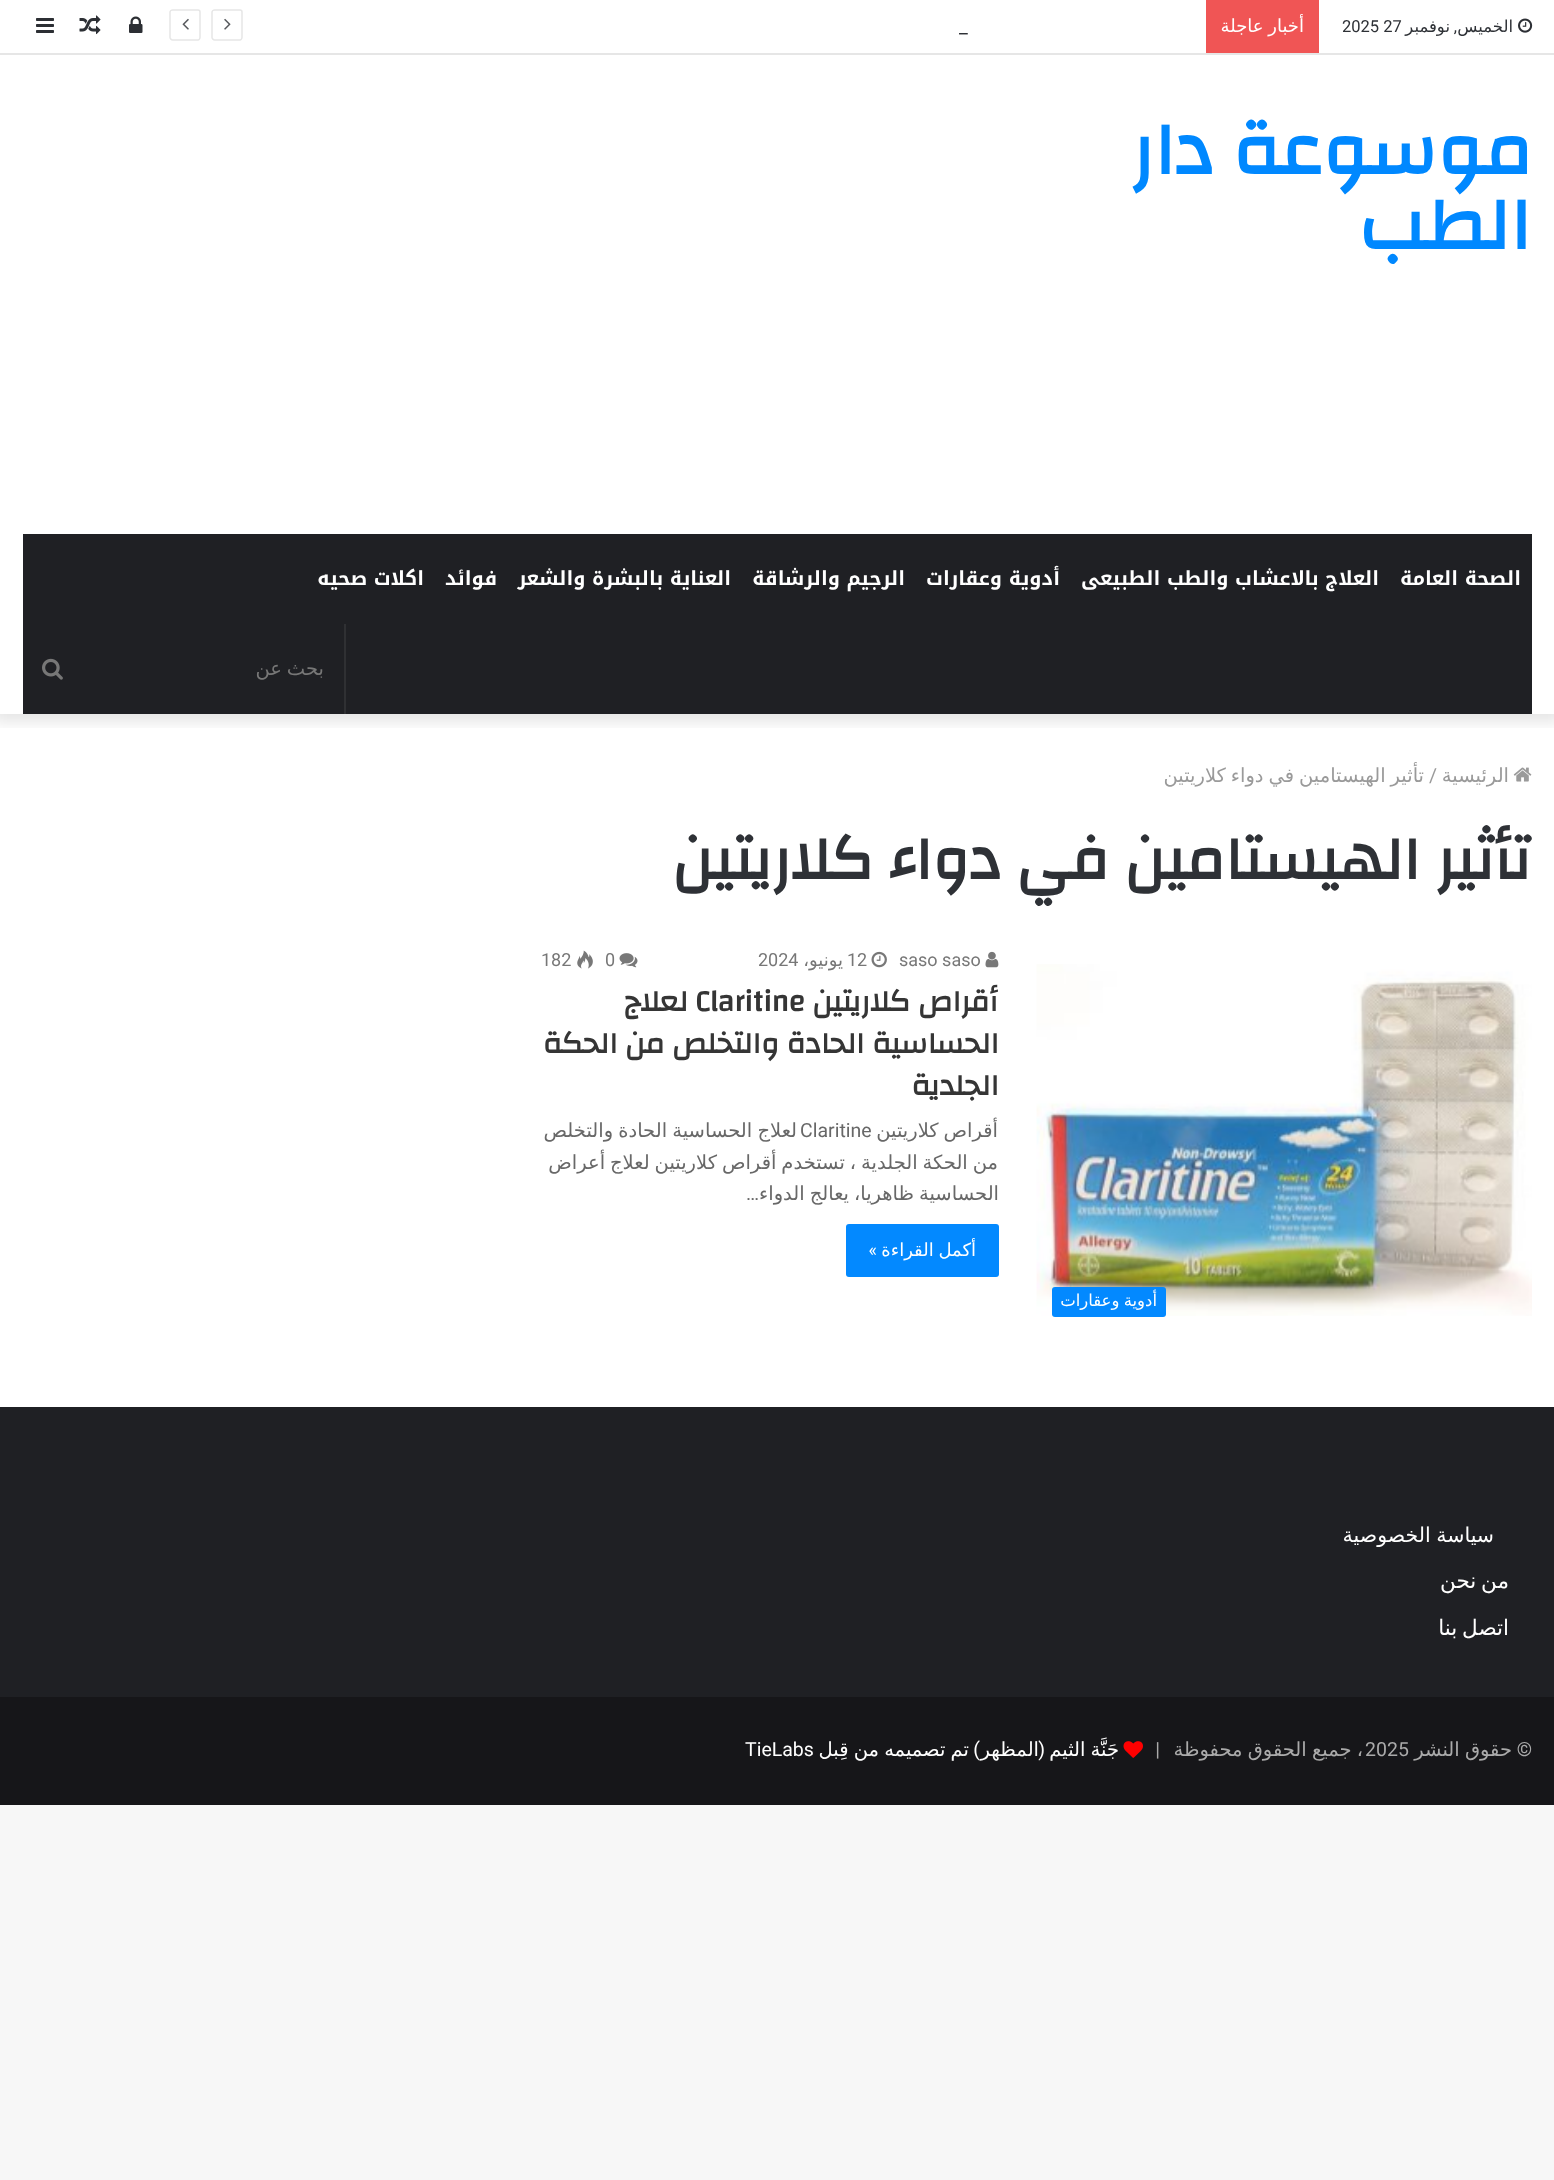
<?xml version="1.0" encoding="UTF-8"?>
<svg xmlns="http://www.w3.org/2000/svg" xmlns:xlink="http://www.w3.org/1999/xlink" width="1554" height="2180">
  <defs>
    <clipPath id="clip1"><rect x="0" y="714" width="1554" height="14" /></clipPath>
  </defs>
  <rect width="100%" height="100%" fill="#f7f7f7" />
  <rect width="1554" height="1407" fill="#ffffff" />
  <g clip-path="url(#clip1)">
    <rect x="-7" y="-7" width="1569" height="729" fill="#000000" fill-opacity="0.1" filter="blur(7.5px)" />
  </g>
  <rect y="53" width="1554" height="2" fill="#e6e6e6" />
  <image x="1518" y="18" width="15" height="15" xlink:href="image1.png" />
  <rect x="1206" width="113" height="53" fill="#f05555" />
  <path d="M 240 40 h -25.5 c -1 0 -2.5 -1.5 -2.5 -2.5 v -25.5 c 0 -1 1.5 -2 2.5 -2 h 25.5 c 1 0 2 1 2 2 v 25.5 c 0 1 -1 2.5 -2 2.5 z" fill="none" stroke="#e6e6e6" stroke-width="1.5" />
  <image x="224" y="18" width="7" height="12" xlink:href="image2.png" />
  <path d="M 198 40 h -25.5 c -1 0 -2.5 -1.5 -2.5 -2.5 v -25.5 c 0 -1 1.5 -2 2.5 -2 h 25.5 c 1 0 2 1 2 2 v 25.5 c 0 1 -1 2.5 -2 2.5 z" fill="none" stroke="#e6e6e6" stroke-width="1.5" />
  <image x="182" y="18" width="7" height="12" xlink:href="image3.png" />
  <image x="129" y="16" width="14" height="17" xlink:href="image4.png" />
  <image x="79" y="15" width="22" height="20" xlink:href="image5.png" />
  <image x="36" y="18" width="18" height="15" xlink:href="image6.png" />
  <rect x="23" y="534" width="1509" height="180" fill="#1f2024" />
  <rect x="344" y="624" width="2" height="90" fill="#2f3033" />
  <image x="42" y="658" width="21" height="22" xlink:href="image7.png" />
  <image x="1513" y="767" width="19" height="15" xlink:href="image8.png" />
  <image x="985" y="951" width="14" height="17" xlink:href="image9.png" />
  <image x="871" y="951" width="16" height="17" xlink:href="image10.png" />
  <image x="619" y="953" width="19" height="15" xlink:href="image11.png" />
  <image x="577" y="950" width="16" height="19" xlink:href="image12.png" />
  <rect x="846" y="1224" width="153" height="53" rx="3" fill="#0389ff" />
  <image x="1036" y="964" width="496" height="352" xlink:href="image13.png" />
  <rect x="1052" y="1287" width="114" height="30" rx="3" fill="#0389ff" />
  <rect y="1407" width="1554" height="290" fill="#1f2024" />
  <rect y="1697" width="1554" height="108" fill="#161619" />
  <image x="1123" y="1741" width="20" height="17" xlink:href="image14.png" />
  <text x="1513" y="32" style="font-family: DejaVu Sans; font-size: 16.5px; direction: rtl; fill: #2e3136">الخميس</text>
  <text x="1457" y="32" style="font-family: Roboto; font-size: 16.5px; direction: rtl; fill: #2e3136">,</text>
  <text x="1450" y="32" style="font-family: DejaVu Sans; font-size: 16.5px; direction: rtl; fill: #2e3136">نوفمبر</text>
  <text x="1342" y="32" style="font-family: Roboto; font-size: 16.5px; fill: #2e3136">2025 27</text>
  <text x="1304" y="32" word-spacing="-1" style="font-family: DejaVu Sans; font-size: 18px; direction: rtl; fill: #ffffff">أخبار عاجلة</text>
  <text x="959" y="33" style="font-family: Roboto; font-size: 19.5px; fill: #2e3136">_</text>
  <text x="1532" y="174" style="font-family: Changa; font-size: 75px; font-weight: bold; direction: rtl; fill: #0088ff">موسوعة دار</text>
  <text x="1531" y="249" style="font-family: Changa; font-size: 75px; font-weight: bold; direction: rtl; fill: #0088ff">الطب</text>
  <text x="1521" y="585" style="font-family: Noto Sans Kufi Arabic; font-size: 19.5px; font-weight: bold; direction: rtl; fill: #ffffff">الصحة العامة</text>
  <text x="1379" y="585" style="font-family: Noto Sans Kufi Arabic; font-size: 19.5px; font-weight: bold; direction: rtl; fill: #ffffff">العلاج بالاعشاب والطب الطبيعى</text>
  <text x="1060" y="585" style="font-family: Noto Sans Kufi Arabic; font-size: 19.5px; font-weight: bold; direction: rtl; fill: #ffffff">أدوية وعقارات</text>
  <text x="905" y="585" style="font-family: Noto Sans Kufi Arabic; font-size: 19.5px; font-weight: bold; direction: rtl; fill: #ffffff">الرجيم والرشاقة</text>
  <text x="731" y="585" style="font-family: Noto Sans Kufi Arabic; font-size: 19.5px; font-weight: bold; direction: rtl; fill: #ffffff">العناية بالبشرة والشعر</text>
  <text x="497" y="585" style="font-family: Noto Sans Kufi Arabic; font-size: 19.5px; font-weight: bold; direction: rtl; fill: #ffffff">فوائد</text>
  <text x="424" y="585" style="font-family: Noto Sans Kufi Arabic; font-size: 19.5px; font-weight: bold; direction: rtl; fill: #ffffff">اكلات صحيه</text>
  <text x="324" y="675" word-spacing="-1.25" style="font-family: DejaVu Sans; font-size: 19.5px; direction: rtl; fill: #777777">بحث عن</text>
  <text x="1509" y="782" style="font-family: DejaVu Sans; font-size: 19.5px; direction: rtl; fill: #9a9a9a">الرئيسية</text>
  <text x="1429" y="782" style="font-family: Roboto; font-size: 19.5px; fill: #9a9a9a">/</text>
  <text x="1424" y="782" word-spacing="-1.25" style="font-family: DejaVu Sans; font-size: 19.5px; direction: rtl; fill: #9a9a9a">تأثير الهيستامين في دواء كلاريتين</text>
  <text x="1531" y="879" style="font-family: Changa; font-size: 61.5px; font-weight: bold; direction: rtl; fill: #2e3136">تأثير الهيستامين في دواء كلاريتين</text>
  <text x="899" y="966" style="font-family: Roboto; font-size: 18px; fill: #777777">saso saso</text>
  <text x="847" y="966" style="font-family: Roboto; font-size: 18px; fill: #777777">12</text>
  <text x="843" y="966" style="font-family: DejaVu Sans; font-size: 18px; direction: rtl; fill: #777777">يونيو،</text>
  <text x="758" y="966" style="font-family: Roboto; font-size: 18px; fill: #777777">2024</text>
  <text x="605" y="966" style="font-family: Roboto; font-size: 18px; fill: #777777">0</text>
  <text x="541" y="966" style="font-family: Roboto; font-size: 18px; fill: #777777">182</text>
  <text x="998" y="1011" style="font-family: Changa; font-size: 30px; font-weight: bold; direction: rtl; fill: #353535">أقراص كلاريتين</text>
  <text x="695" y="1011" style="font-family: Changa; font-size: 30px; font-weight: bold; fill: #353535">Claritine</text>
  <text x="688" y="1011" style="font-family: Changa; font-size: 30px; font-weight: bold; direction: rtl; fill: #353535">لعلاج</text>
  <text x="999" y="1053" style="font-family: Changa; font-size: 30px; font-weight: bold; direction: rtl; fill: #353535">الحساسية الحادة والتخلص من الحكة</text>
  <text x="999" y="1095" style="font-family: Changa; font-size: 30px; font-weight: bold; direction: rtl; fill: #353535">الجلدية</text>
  <text x="998" y="1137" word-spacing="-1.25" style="font-family: DejaVu Sans; font-size: 19.5px; direction: rtl; fill: #686868">أقراص كلاريتين</text>
  <text x="800" y="1137" style="font-family: Roboto; font-size: 19.5px; fill: #686868">Claritine</text>
  <text x="797" y="1137" word-spacing="-1" style="font-family: DejaVu Sans; font-size: 19.5px; direction: rtl; fill: #686868">لعلاج الحساسية الحادة والتخلص</text>
  <text x="998" y="1169" word-spacing="-1.25" style="font-family: DejaVu Sans; font-size: 19.5px; direction: rtl; fill: #686868">من الحكة الجلدية ، تستخدم أقراص كلاريتين لعلاج أعراض</text>
  <text x="999" y="1200" word-spacing="-1.25" style="font-family: DejaVu Sans; font-size: 19.5px; direction: rtl; fill: #686868">الحساسية ظاهريا، يعالج الدواء</text>
  <text x="759" y="1200" style="font-family: Roboto; font-size: 19.5px; direction: rtl; fill: #686868">…</text>
  <text x="976" y="1256" word-spacing="-1" style="font-family: DejaVu Sans; font-size: 18px; direction: rtl; fill: #ffffff">أكمل القراءة</text>
  <text x="877" y="1256" style="font-family: Roboto; font-size: 18px; direction: rtl; fill: #ffffff">»</text>
  <text x="1157" y="1306" word-spacing="-1" style="font-family: DejaVu Sans; font-size: 16.5px; direction: rtl; fill: #ffffff">أدوية وعقارات</text>
  <text x="1494" y="1542" word-spacing="-1" style="font-family: DejaVu Sans; font-size: 20.5px; direction: rtl; fill: #ffffff">سياسة الخصوصية</text>
  <text x="1509" y="1588" word-spacing="-2" style="font-family: DejaVu Sans; font-size: 21.5px; direction: rtl; fill: #ffffff">من نحن</text>
  <text x="1509" y="1635" word-spacing="-2" style="font-family: DejaVu Sans; font-size: 21.5px; direction: rtl; fill: #ffffff">اتصل بنا</text>
  <text x="1532" y="1756" style="font-family: Roboto; font-size: 19.5px; direction: rtl; fill: #aaaaaa">©</text>
  <text x="1512" y="1756" word-spacing="-1" style="font-family: DejaVu Sans; font-size: 19.5px; direction: rtl; fill: #aaaaaa">حقوق النشر</text>
  <text x="1365" y="1756" style="font-family: Roboto; font-size: 19.5px; fill: #aaaaaa">2025</text>
  <text x="1363" y="1756" word-spacing="-1" style="font-family: DejaVu Sans; font-size: 19.5px; direction: rtl; fill: #aaaaaa">، جميع الحقوق محفوظة</text>
  <text x="1160" y="1756" style="font-family: Roboto; font-size: 19.5px; direction: rtl; fill: #aaaaaa">|</text>
  <text x="1119" y="1756" word-spacing="-1" style="font-family: DejaVu Sans; font-size: 19.5px; direction: rtl; fill: #ffffff">جَنَّة الثيم</text>
  <text x="1045" y="1756" style="font-family: Roboto; font-size: 19.5px; direction: rtl; fill: #ffffff">(</text>
  <text x="1039" y="1756" style="font-family: DejaVu Sans; font-size: 19.5px; direction: rtl; fill: #ffffff">المظهر</text>
  <text x="980" y="1756" style="font-family: Roboto; font-size: 19.5px; direction: rtl; fill: #ffffff">)</text>
  <text x="969" y="1756" word-spacing="-1" style="font-family: DejaVu Sans; font-size: 19.5px; direction: rtl; fill: #ffffff">تم تصميمه من قِبل</text>
  <text x="745" y="1756" style="font-family: Roboto; font-size: 19.5px; fill: #ffffff">TieLabs</text>
</svg>
